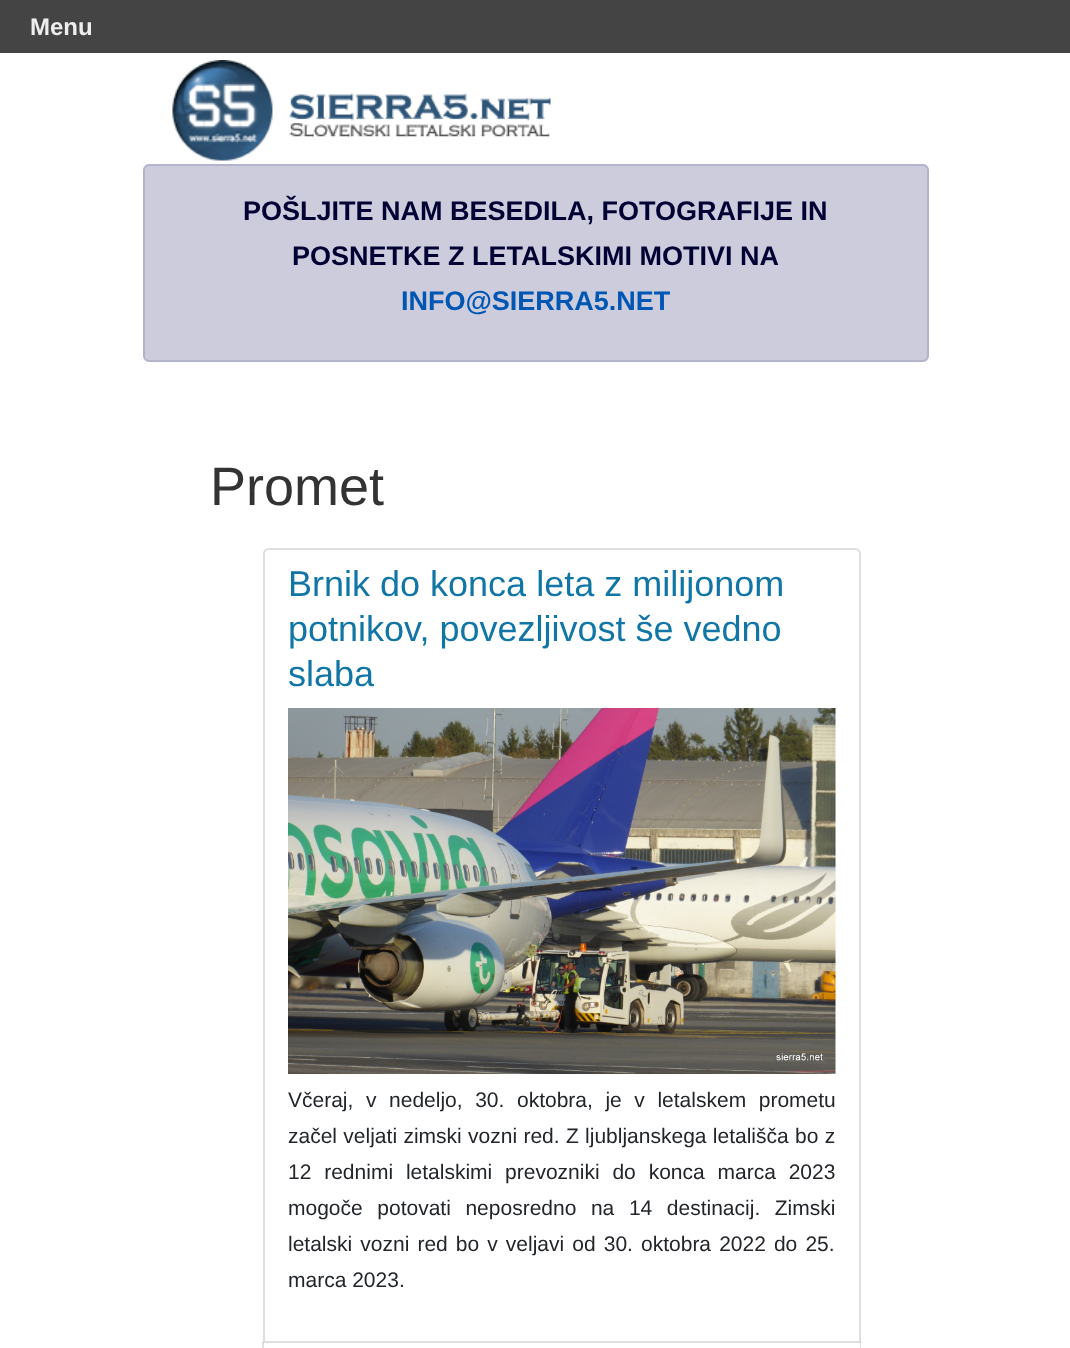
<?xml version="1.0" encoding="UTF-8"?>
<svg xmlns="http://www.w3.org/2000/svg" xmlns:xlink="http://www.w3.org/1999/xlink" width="1070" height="1348">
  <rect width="100%" height="100%" fill="#ffffff" />
  <rect width="1070" height="53" fill="#444444" />
  <image x="172" y="60" width="379" height="101" xlink:href="image1.png" />
  <rect x="144" y="165" width="784" height="196" rx="5" fill="#ccccdd" stroke="#b3b3cc" stroke-width="2" />
  <path d="M 269 549 h 586 c 3 0 5 2 5 5 v 788 h -596 v -788 c 0 -3 2 -5 5 -5 z" fill="none" stroke="#dfdfdf" stroke-width="2" />
  <image x="288" y="708" width="548" height="366" xlink:href="image2.png" />
  <path d="M 861 1342 v 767 l -1 -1 v -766 z" fill="#000000" fill-opacity="0.12" />
  <path d="M 262 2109 v -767 h 2 v 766 z" fill="#000000" fill-opacity="0.12" />
  <text x="30" y="35" style="font-family: Liberation Sans; font-size: 24px; font-weight: bold; fill: #eeeeee">Menu</text>
  <text x="243" y="220" style="font-family: Liberation Sans; font-size: 27px; font-weight: bold; fill: #010134">POŠLJITE NAM BESEDILA, FOTOGRAFIJE IN</text>
  <text x="292" y="265" style="font-family: Liberation Sans; font-size: 27px; font-weight: bold; fill: #010134">POSNETKE Z LETALSKIMI MOTIVI NA</text>
  <text x="401" y="310" style="font-family: Liberation Sans; font-size: 27px; font-weight: bold; fill: #0056b3">INFO@SIERRA5.NET</text>
  <text x="210" y="505" style="font-family: Liberation Sans; font-size: 54px; fill: #333333">Promet</text>
  <text x="288" y="596" style="font-family: Liberation Sans; font-size: 36px; fill: #1176a6">Brnik do konca leta z milijonom</text>
  <text x="288" y="641" style="font-family: Liberation Sans; font-size: 36px; fill: #1176a6">potnikov, povezljivost še vedno</text>
  <text x="288" y="686" style="font-family: Liberation Sans; font-size: 36px; fill: #1176a6">slaba</text>
  <text x="288" y="1107" word-spacing="6.75" style="font-family: Liberation Sans; font-size: 21px; fill: #22262a">Včeraj, v nedeljo, 30. oktobra, je v letalskem prometu</text>
  <text x="288" y="1143" word-spacing="0.5" style="font-family: Liberation Sans; font-size: 21px; fill: #22262a">začel veljati zimski vozni red. Z ljubljanskega letališča bo z</text>
  <text x="288" y="1179" word-spacing="7" style="font-family: Liberation Sans; font-size: 21px; fill: #22262a">12 rednimi letalskimi prevozniki do konca marca 2023</text>
  <text x="288" y="1215" word-spacing="8.75" style="font-family: Liberation Sans; font-size: 21px; fill: #22262a">mogoče potovati neposredno na 14 destinacij. Zimski</text>
  <text x="288" y="1251" word-spacing="2.25" style="font-family: Liberation Sans; font-size: 21px; fill: #22262a">letalski vozni red bo v veljavi od 30. oktobra 2022 do 25.</text>
  <text x="288" y="1287" style="font-family: Liberation Sans; font-size: 21px; fill: #22262a">marca 2023.</text>
</svg>
